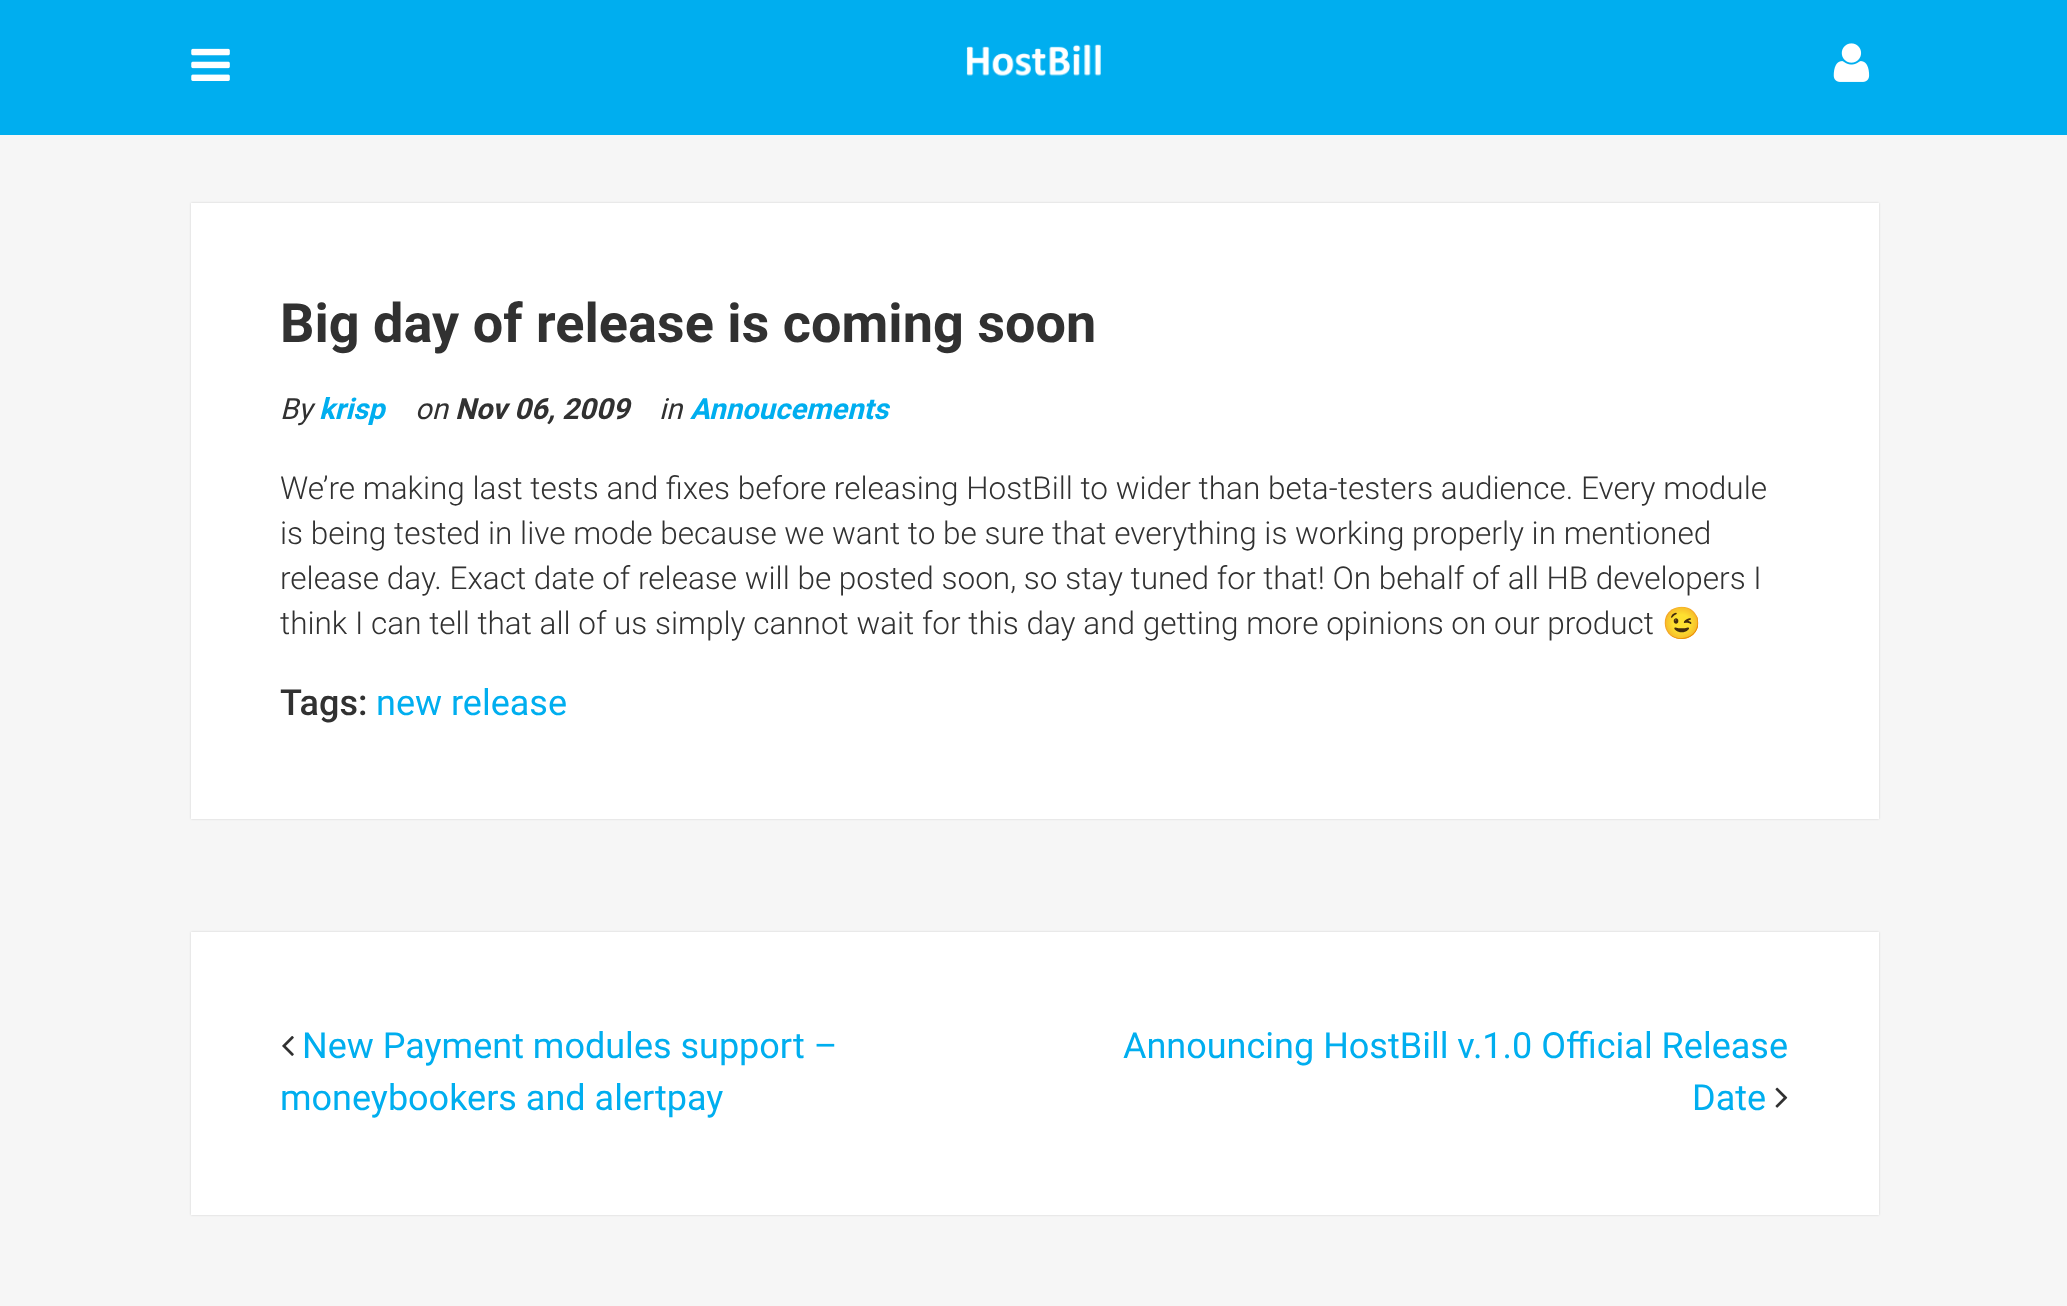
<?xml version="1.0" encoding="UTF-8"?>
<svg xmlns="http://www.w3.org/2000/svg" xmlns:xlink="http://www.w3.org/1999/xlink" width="2067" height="1306">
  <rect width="100%" height="100%" fill="#f6f6f6" />
  <rect width="2067" height="135" fill="#00aeef" />
  <image x="191" y="48" width="39" height="33" xlink:href="image1.png" />
  <image x="966" y="44" width="135" height="32" xlink:href="image2.png" />
  <image x="1833" y="43" width="37" height="39" xlink:href="image3.png" />
  <rect x="191" y="203" width="1688" height="616" fill="#000000" fill-opacity="0.15" filter="blur(1px)" />
  <rect x="191" y="203" width="1688" height="616" fill="#ffffff" />
  <rect x="191" y="932" width="1688" height="283" fill="#000000" fill-opacity="0.15" filter="blur(1px)" />
  <rect x="191" y="932" width="1688" height="283" fill="#ffffff" />
  <image x="282" y="1036" width="12" height="20" xlink:href="image4.png" />
  <image x="1775" y="1087" width="13" height="21" xlink:href="image5.png" />
  <text x="280" y="342" style="font-family: Roboto; font-size: 54px; font-weight: bold; fill: #313131">Big day of release is coming soon</text>
  <text x="280" y="419" style="font-family: Roboto; font-size: 29.25px; font-style: italic; fill: #313131">By</text>
  <text x="319" y="419" style="font-family: Roboto; font-size: 29.25px; font-weight: bold; font-style: italic; fill: #00aeef">krisp</text>
  <text x="415" y="419" style="font-family: Roboto; font-size: 29.25px; font-style: italic; fill: #313131">on</text>
  <text x="455" y="419" style="font-family: Roboto; font-size: 29.25px; font-weight: bold; font-style: italic; fill: #313131">Nov 06, 2009</text>
  <text x="659" y="419" style="font-family: Roboto; font-size: 29.25px; font-style: italic; fill: #313131">in</text>
  <text x="690" y="419" style="font-family: Roboto; font-size: 29.25px; font-weight: bold; font-style: italic; fill: #00aeef">Annoucements</text>
  <text x="280" y="499" style="font-family: Roboto; font-size: 31.5px; font-weight: 300; fill: #313131">We’re making last tests and fixes before releasing HostBill to wider than beta-testers audience. Every module</text>
  <text x="280" y="544" style="font-family: Roboto; font-size: 31.5px; font-weight: 300; fill: #313131">is being tested in live mode because we want to be sure that everything is working properly in mentioned</text>
  <text x="280" y="589" style="font-family: Roboto; font-size: 31.5px; font-weight: 300; fill: #313131">release day. Exact date of release will be posted soon, so stay tuned for that! On behalf of all HB developers I</text>
  <text x="280" y="634" style="font-family: Roboto; font-size: 31.5px; font-weight: 300; fill: #313131">think I can tell that all of us simply cannot wait for this day and getting more opinions on our product</text>
  <text x="1662" y="634" style="font-family: Noto Color Emoji; font-size: 31.5px; fill: #313131">😉</text>
  <text x="280" y="715" style="font-family: Roboto; font-size: 36px; font-weight: 500; fill: #313131">Tags:</text>
  <text x="376" y="715" style="font-family: Roboto; font-size: 36px; fill: #00aeef">new release</text>
  <text x="302" y="1058" style="font-family: Roboto; font-size: 36px; fill: #00aeef">New Payment modules support –</text>
  <text x="280" y="1110" style="font-family: Roboto; font-size: 36px; fill: #00aeef">moneybookers and alertpay</text>
  <text x="1123" y="1058" style="font-family: Roboto; font-size: 36px; fill: #00aeef">Announcing HostBill v.1.0 Official Release</text>
  <text x="1692" y="1110" style="font-family: Roboto; font-size: 36px; fill: #00aeef">Date</text>
</svg>
